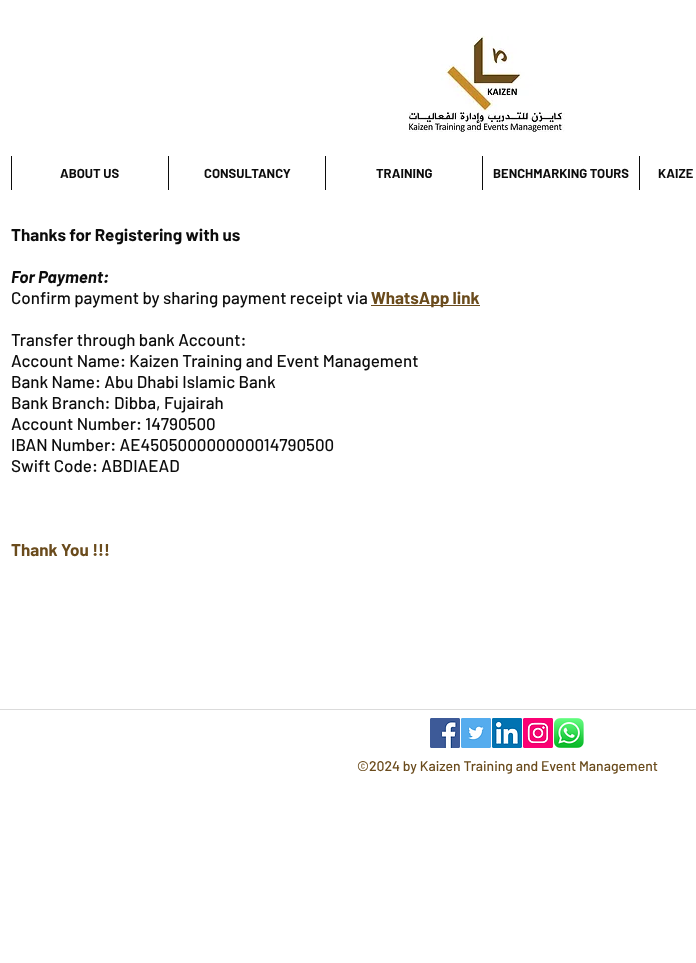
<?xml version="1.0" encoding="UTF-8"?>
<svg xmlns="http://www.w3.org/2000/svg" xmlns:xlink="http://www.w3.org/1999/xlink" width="696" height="963">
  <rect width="100%" height="100%" fill="#ffffff" />
  <image x="409" y="36" width="156" height="96" xlink:href="image1.png" />
  <rect x="11" y="156" width="1" height="34" fill="#0c0c0c" />
  <rect x="168" y="156" width="1" height="34" fill="#0c0c0c" />
  <rect x="325" y="156" width="1" height="34" fill="#0c0c0c" />
  <rect x="482" y="156" width="1" height="34" fill="#0c0c0c" />
  <rect x="639" y="156" width="1" height="34" fill="#0c0c0c" />
  <rect x="371" y="305" width="109" height="1" fill="#6a4b1c" />
  <rect y="709" width="696" height="1" fill="#dbdbdb" />
  <image x="430" y="718" width="30" height="30" xlink:href="image2.png" />
  <image x="461" y="718" width="30" height="30" xlink:href="image3.png" />
  <image x="492" y="718" width="30" height="30" xlink:href="image4.png" />
  <image x="523" y="718" width="30" height="30" xlink:href="image5.png" />
  <image x="554" y="718" width="30" height="30" xlink:href="image6.png" />
  <text x="60" y="178" style="font-family: Barlow; font-size: 13px; font-weight: bold; fill: #0c0c0c">ABOUT US</text>
  <text x="204" y="178" style="font-family: Barlow; font-size: 13px; font-weight: bold; fill: #0c0c0c">CONSULTANCY</text>
  <text x="376" y="178" style="font-family: Barlow; font-size: 13px; font-weight: bold; fill: #0c0c0c">TRAINING</text>
  <text x="493" y="178" style="font-family: Barlow; font-size: 13px; font-weight: bold; fill: #0c0c0c">BENCHMARKING TOURS</text>
  <text x="658" y="178" style="font-family: Barlow; font-size: 13px; font-weight: bold; fill: #0c0c0c">KAIZE</text>
  <text x="11" y="241" style="font-family: Barlow; font-size: 17px; font-weight: bold; fill: #0c0c0c">Thanks for Registering with us</text>
  <text x="11" y="283" style="font-family: Barlow; font-size: 17px; font-weight: bold; font-style: italic; fill: #0c0c0c">For Payment:</text>
  <text x="11" y="304" style="font-family: Barlow; font-size: 17px; font-weight: 500; fill: #0c0c0c">Confirm payment by sharing payment receipt via</text>
  <text x="371" y="304" style="font-family: Barlow; font-size: 17px; font-weight: bold; fill: #6a4b1c">WhatsApp link</text>
  <text x="11" y="346" style="font-family: Barlow; font-size: 17px; font-weight: 500; fill: #0c0c0c">Transfer through bank Account:</text>
  <text x="11" y="367" style="font-family: Barlow; font-size: 17px; font-weight: 500; fill: #0c0c0c">Account Name: Kaizen Training and Event Management</text>
  <text x="11" y="388" style="font-family: Barlow; font-size: 17px; font-weight: 500; fill: #0c0c0c">Bank Name: Abu Dhabi Islamic Bank</text>
  <text x="11" y="409" style="font-family: Barlow; font-size: 17px; font-weight: 500; fill: #0c0c0c">Bank Branch: Dibba, Fujairah</text>
  <text x="11" y="430" style="font-family: Barlow; font-size: 17px; font-weight: 500; fill: #0c0c0c">Account Number: 14790500</text>
  <text x="11" y="451" style="font-family: Barlow; font-size: 17px; font-weight: 500; fill: #0c0c0c">IBAN Number: AE450500000000014790500</text>
  <text x="11" y="472" style="font-family: Barlow; font-size: 17px; font-weight: 500; fill: #0c0c0c">Swift Code: ABDIAEAD</text>
  <text x="11" y="556" style="font-family: Barlow; font-size: 17px; font-weight: bold; fill: #6a4b1c">Thank You !!!</text>
  <text x="357" y="771" style="font-family: Barlow; font-size: 14px; font-weight: 500; fill: #6a4b1c">©2024 by Kaizen Training and Event Management</text>
</svg>
